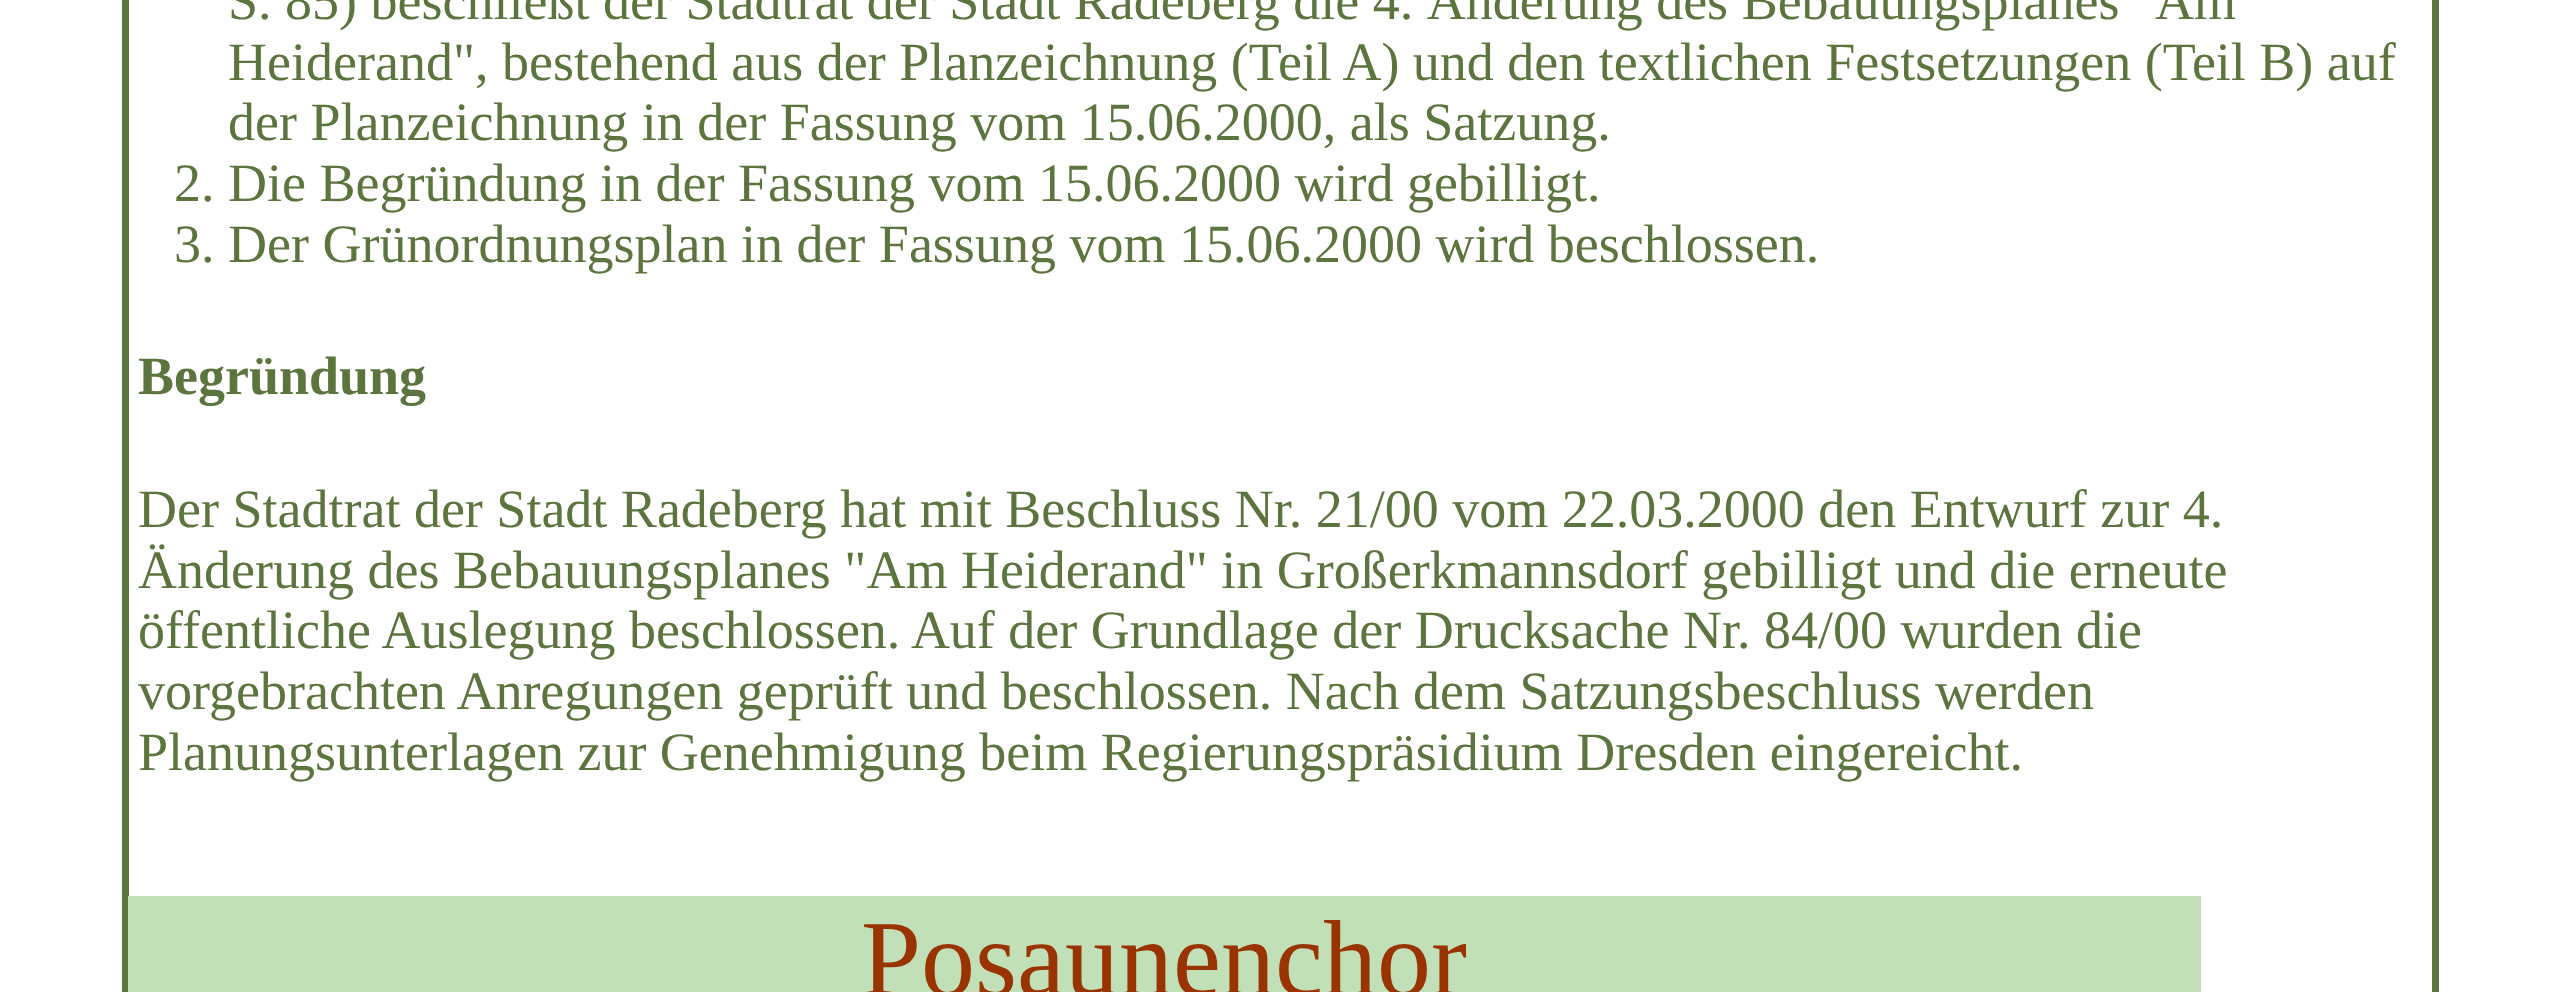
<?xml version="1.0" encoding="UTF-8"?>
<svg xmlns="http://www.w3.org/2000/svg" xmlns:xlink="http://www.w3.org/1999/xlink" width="2557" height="992">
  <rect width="100%" height="100%" fill="#ffffff" />
  <rect x="125.5" y="-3.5" width="2310" height="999" fill="none" stroke="#5c743d" stroke-width="7" />
  <rect x="128" y="896" width="2073" height="96" fill="#c2e0b8" />
  <text x="228" y="19" style="font-family: Liberation Serif; font-size: 54px; fill: #5c743d">S. 85) beschließt der Stadtrat der Stadt Radeberg die 4. Änderung des Bebauungsplanes "Am</text>
  <text x="228" y="80" style="font-family: Liberation Serif; font-size: 54px; fill: #5c743d">Heiderand", bestehend aus der Planzeichnung (Teil A) und den textlichen Festsetzungen (Teil B) auf</text>
  <text x="228" y="140" style="font-family: Liberation Serif; font-size: 54px; fill: #5c743d">der Planzeichnung in der Fassung vom 15.06.2000, als Satzung.</text>
  <text x="174" y="201" style="font-family: Liberation Serif; font-size: 54px; fill: #5c743d">2. Die Begründung in der Fassung vom 15.06.2000 wird gebilligt.</text>
  <text x="174" y="262" style="font-family: Liberation Serif; font-size: 54px; fill: #5c743d">3. Der Grünordnungsplan in der Fassung vom 15.06.2000 wird beschlossen.</text>
  <text x="138" y="394" style="font-family: Liberation Serif; font-size: 54px; font-weight: bold; fill: #5c743d">Begründung</text>
  <text x="138" y="527" style="font-family: Liberation Serif; font-size: 54px; fill: #5c743d">Der Stadtrat der Stadt Radeberg hat mit Beschluss Nr. 21/00 vom 22.03.2000 den Entwurf zur 4.</text>
  <text x="138" y="588" style="font-family: Liberation Serif; font-size: 54px; fill: #5c743d">Änderung des Bebauungsplanes "Am Heiderand" in Großerkmannsdorf gebilligt und die erneute</text>
  <text x="138" y="648" style="font-family: Liberation Serif; font-size: 54px; fill: #5c743d">öffentliche Auslegung beschlossen. Auf der Grundlage der Drucksache Nr. 84/00 wurden die</text>
  <text x="138" y="709" style="font-family: Liberation Serif; font-size: 54px; fill: #5c743d">vorgebrachten Anregungen geprüft und beschlossen. Nach dem Satzungsbeschluss werden</text>
  <text x="138" y="770" style="font-family: Liberation Serif; font-size: 54px; fill: #5c743d">Planungsunterlagen zur Genehmigung beim Regierungspräsidium Dresden eingereicht.</text>
  <text x="861" y="995" style="font-family: Liberation Serif; font-size: 108px; fill: #993300">Posaunenchor</text>
</svg>
